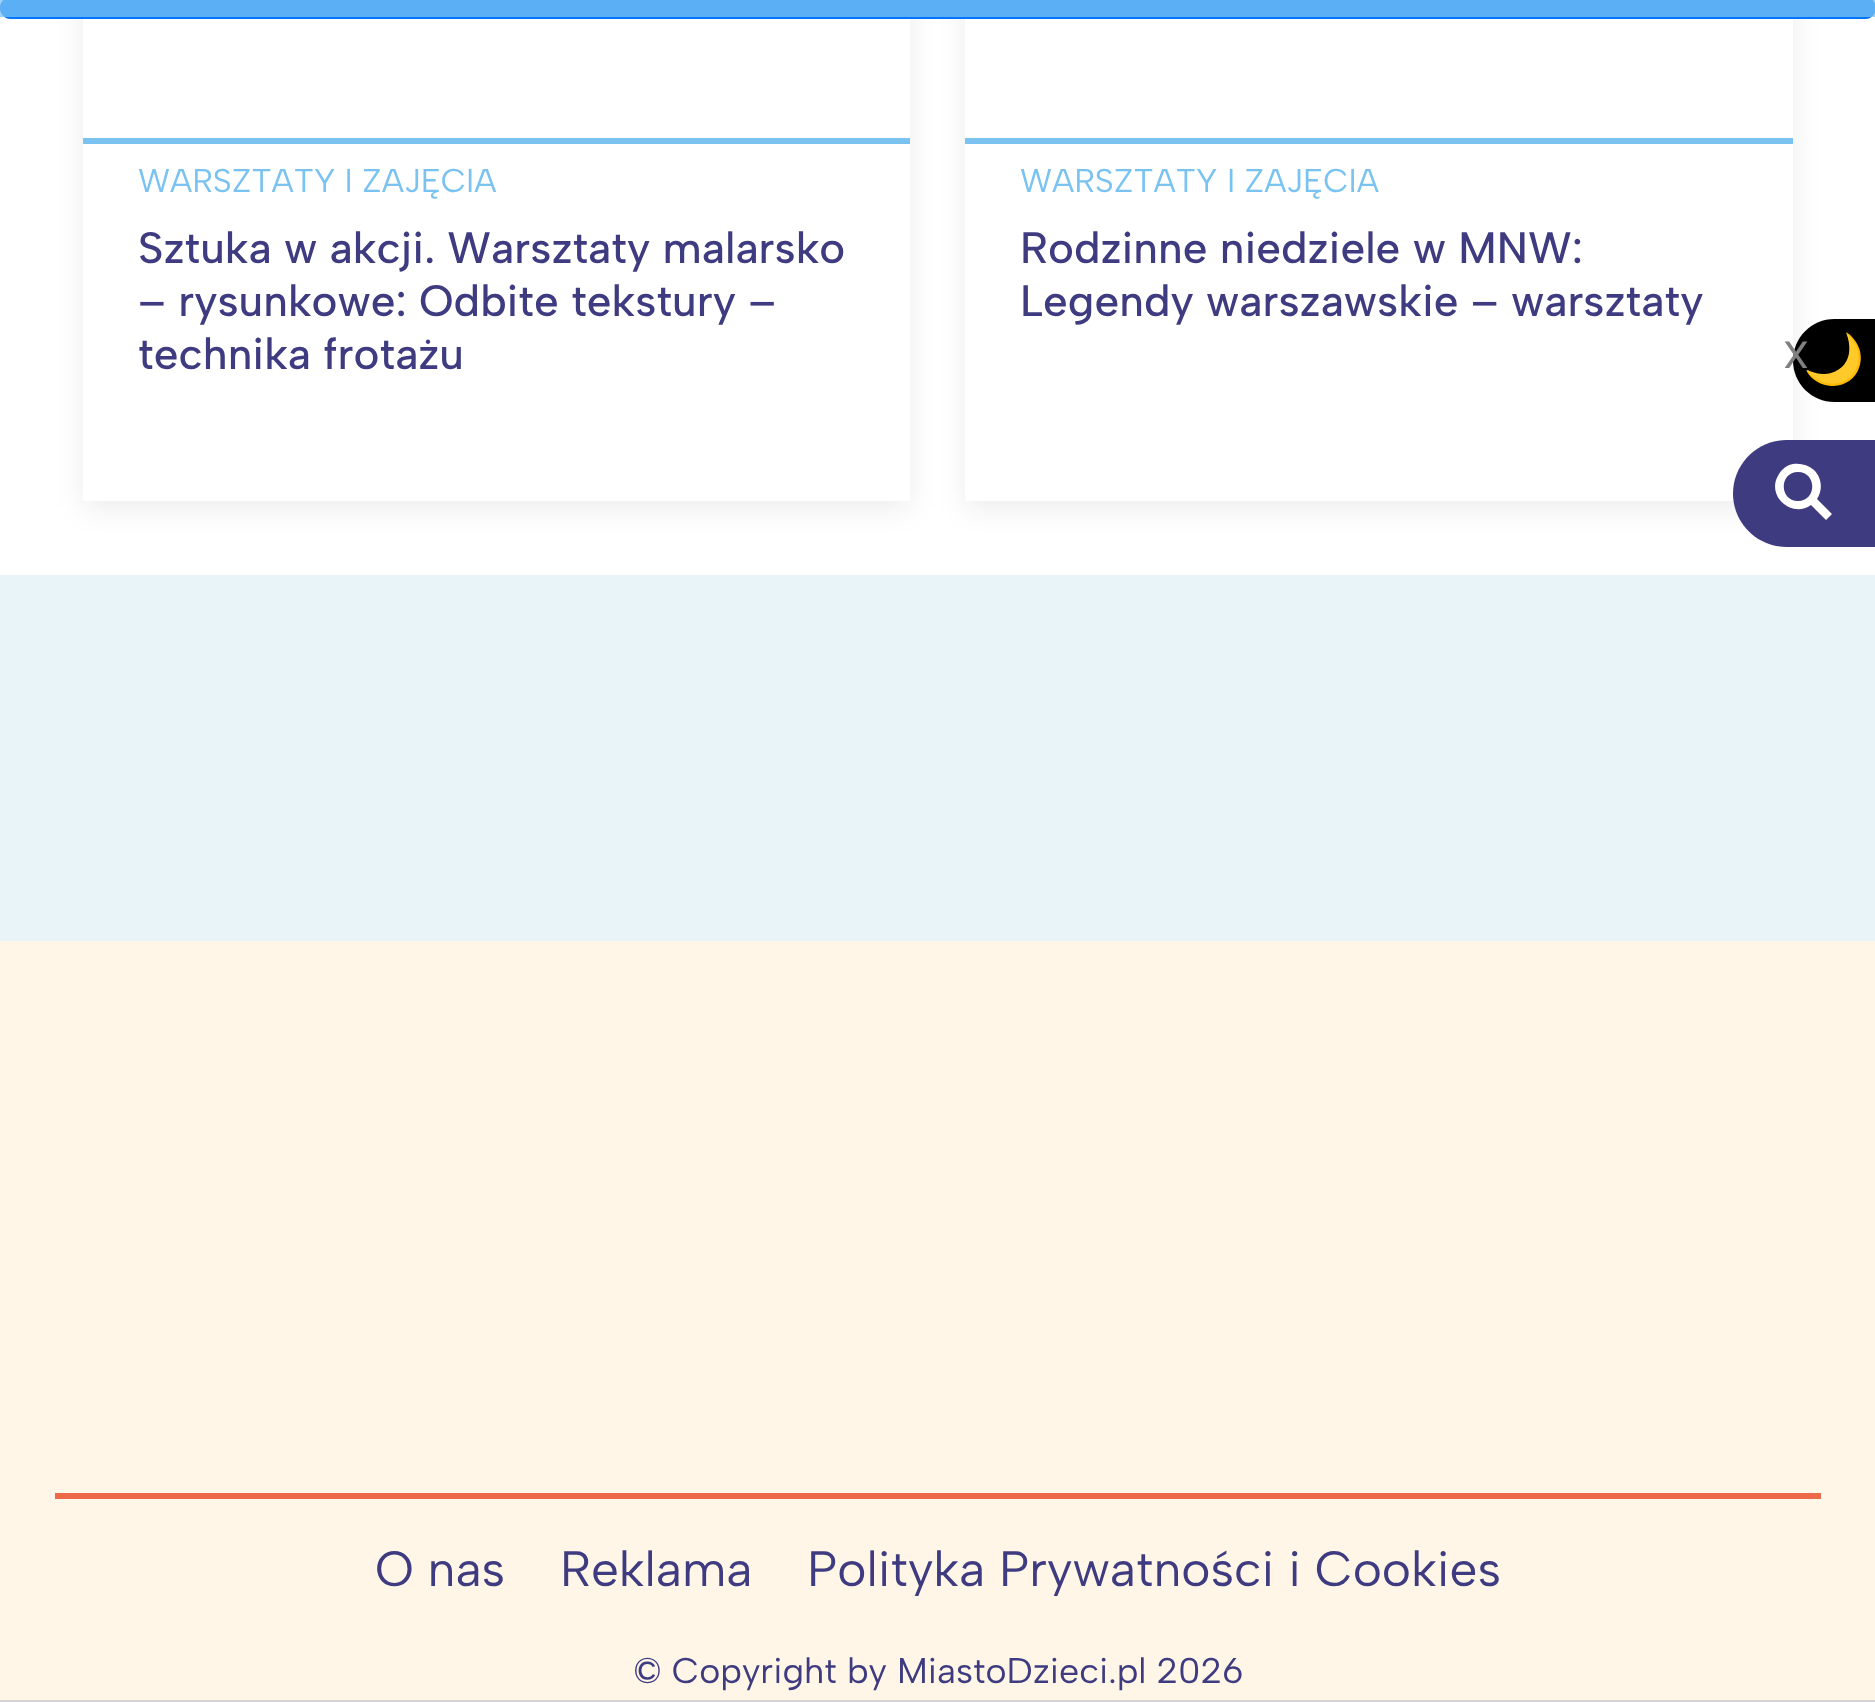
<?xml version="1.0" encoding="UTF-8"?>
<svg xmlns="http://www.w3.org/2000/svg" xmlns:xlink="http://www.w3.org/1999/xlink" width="1875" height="1702">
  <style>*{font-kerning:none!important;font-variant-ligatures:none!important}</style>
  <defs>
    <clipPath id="clip1"><path d="M 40 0 h 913 v 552 h -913 z m 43 -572 h 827 v 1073 h -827 z" clip-rule="evenodd" /></clipPath>
    <clipPath id="clip2"><path d="M 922 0 h 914 v 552 h -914 z m 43 -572 h 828 v 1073 h -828 z" clip-rule="evenodd" /></clipPath>
  </defs>
  <rect width="100%" height="100%" fill="#ffffff" />
  <g clip-path="url(#clip1)">
    <rect x="83" y="-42" width="827" height="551" fill="#000000" fill-opacity="0.07" filter="blur(14px)" />
  </g>
  <g clip-path="url(#clip2)">
    <rect x="965" y="-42" width="828" height="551" fill="#000000" fill-opacity="0.07" filter="blur(14px)" />
  </g>
  <rect x="1.5" y="-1.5" width="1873" height="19" rx="9.5" fill="none" stroke="#b2b2b2" stroke-width="3" />
  <rect y="-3" width="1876" height="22" rx="11" fill="#0075ff" />
  <rect width="1875" height="17" fill="#7ac3f1" fill-opacity="0.75" />
  <rect x="83" y="138" width="827" height="6" fill="#7ac3f1" />
  <rect x="965" y="138" width="828" height="6" fill="#7ac3f1" />
  <path d="M 1834.5 319 h 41.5 v 83 h -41.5 c -23 0 -41.5 -18.5 -41.5 -41.5 c 0 -23 18.5 -41.5 41.5 -41.5 z" fill="#000000" />
  <path d="M 1786.5 440 h 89.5 v 107 h -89.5 c -29.5 0 -53.5 -24 -53.5 -53.5 c 0 -29.5 24 -53.5 53.5 -53.5 z" fill="#3e3b80" />
  <path d="M 1811 505 c -20 14 -46 -10 -32 -31 c 3 -5 8 -9 14 -10 c 8 -1 15 1 21 6 c 8 8 9 20 3 29 l 15 15 l -6 6 z m -13 -4 c 19 0 19 -29 0 -29 c -19 0 -19 29 0 29 z" fill="#ffffff" fill-rule="evenodd" />
  <rect y="941" width="1875" height="759" fill="#fff6e7" />
  <rect y="575" width="1875" height="366" fill="#e9f4f9" />
  <rect x="55" y="1493" width="1766" height="6" fill="#ec694a" />
  <rect y="1700" width="1875" height="2" fill="#d3d3d3" />
  <text x="138" y="192" style="font-family: Albert Sans; font-size: 33px; fill: #7ac3f1">WARSZTATY I ZAJĘCIA</text>
  <text x="138" y="263" style="font-family: Albert Sans; font-size: 44px; font-weight: 500; fill: #3e3b80">Sztuka w akcji. Warsztaty malarsko</text>
  <text x="138" y="316" style="font-family: Albert Sans; font-size: 44px; font-weight: 500; fill: #3e3b80">– rysunkowe: Odbite tekstury –</text>
  <text x="138" y="369" style="font-family: Albert Sans; font-size: 44px; font-weight: 500; fill: #3e3b80">technika frotażu</text>
  <text x="1020" y="192" style="font-family: Albert Sans; font-size: 33px; fill: #7ac3f1">WARSZTATY</text>
  <text x="1227" y="192" style="font-family: Albert Sans; font-size: 33px; fill: #7ac3f1">I ZAJĘCIA</text>
  <text x="1020" y="263" style="font-family: Albert Sans; font-size: 44px; font-weight: 500; fill: #3e3b80">Rodzinne niedziele w MNW:</text>
  <text x="1020" y="316" style="font-family: Albert Sans; font-size: 44px; font-weight: 500; fill: #3e3b80">Legendy warszawskie – warsztaty</text>
  <text x="1803" y="376" style="font-family: Noto Color Emoji; font-size: 49.5px; fill: #ffffff">🌙</text>
  <text x="375" y="1586" style="font-family: Albert Sans; font-size: 49.5px; fill: #3e3b80">O nas</text>
  <text x="560" y="1586" style="font-family: Albert Sans; font-size: 49.5px; fill: #3e3b80">Reklama</text>
  <text x="807" y="1586" style="font-family: Albert Sans; font-size: 49.5px; fill: #3e3b80">Polityka Prywatności i Cookies</text>
  <text x="633" y="1683" style="font-family: Albert Sans; font-size: 35.75px; fill: #3e3b80">© Copyright by MiastoDzieci.pl 2026</text>
  <text x="1783" y="368" style="font-family: Albert Sans; font-size: 53px; fill: #808080">x</text>
</svg>
